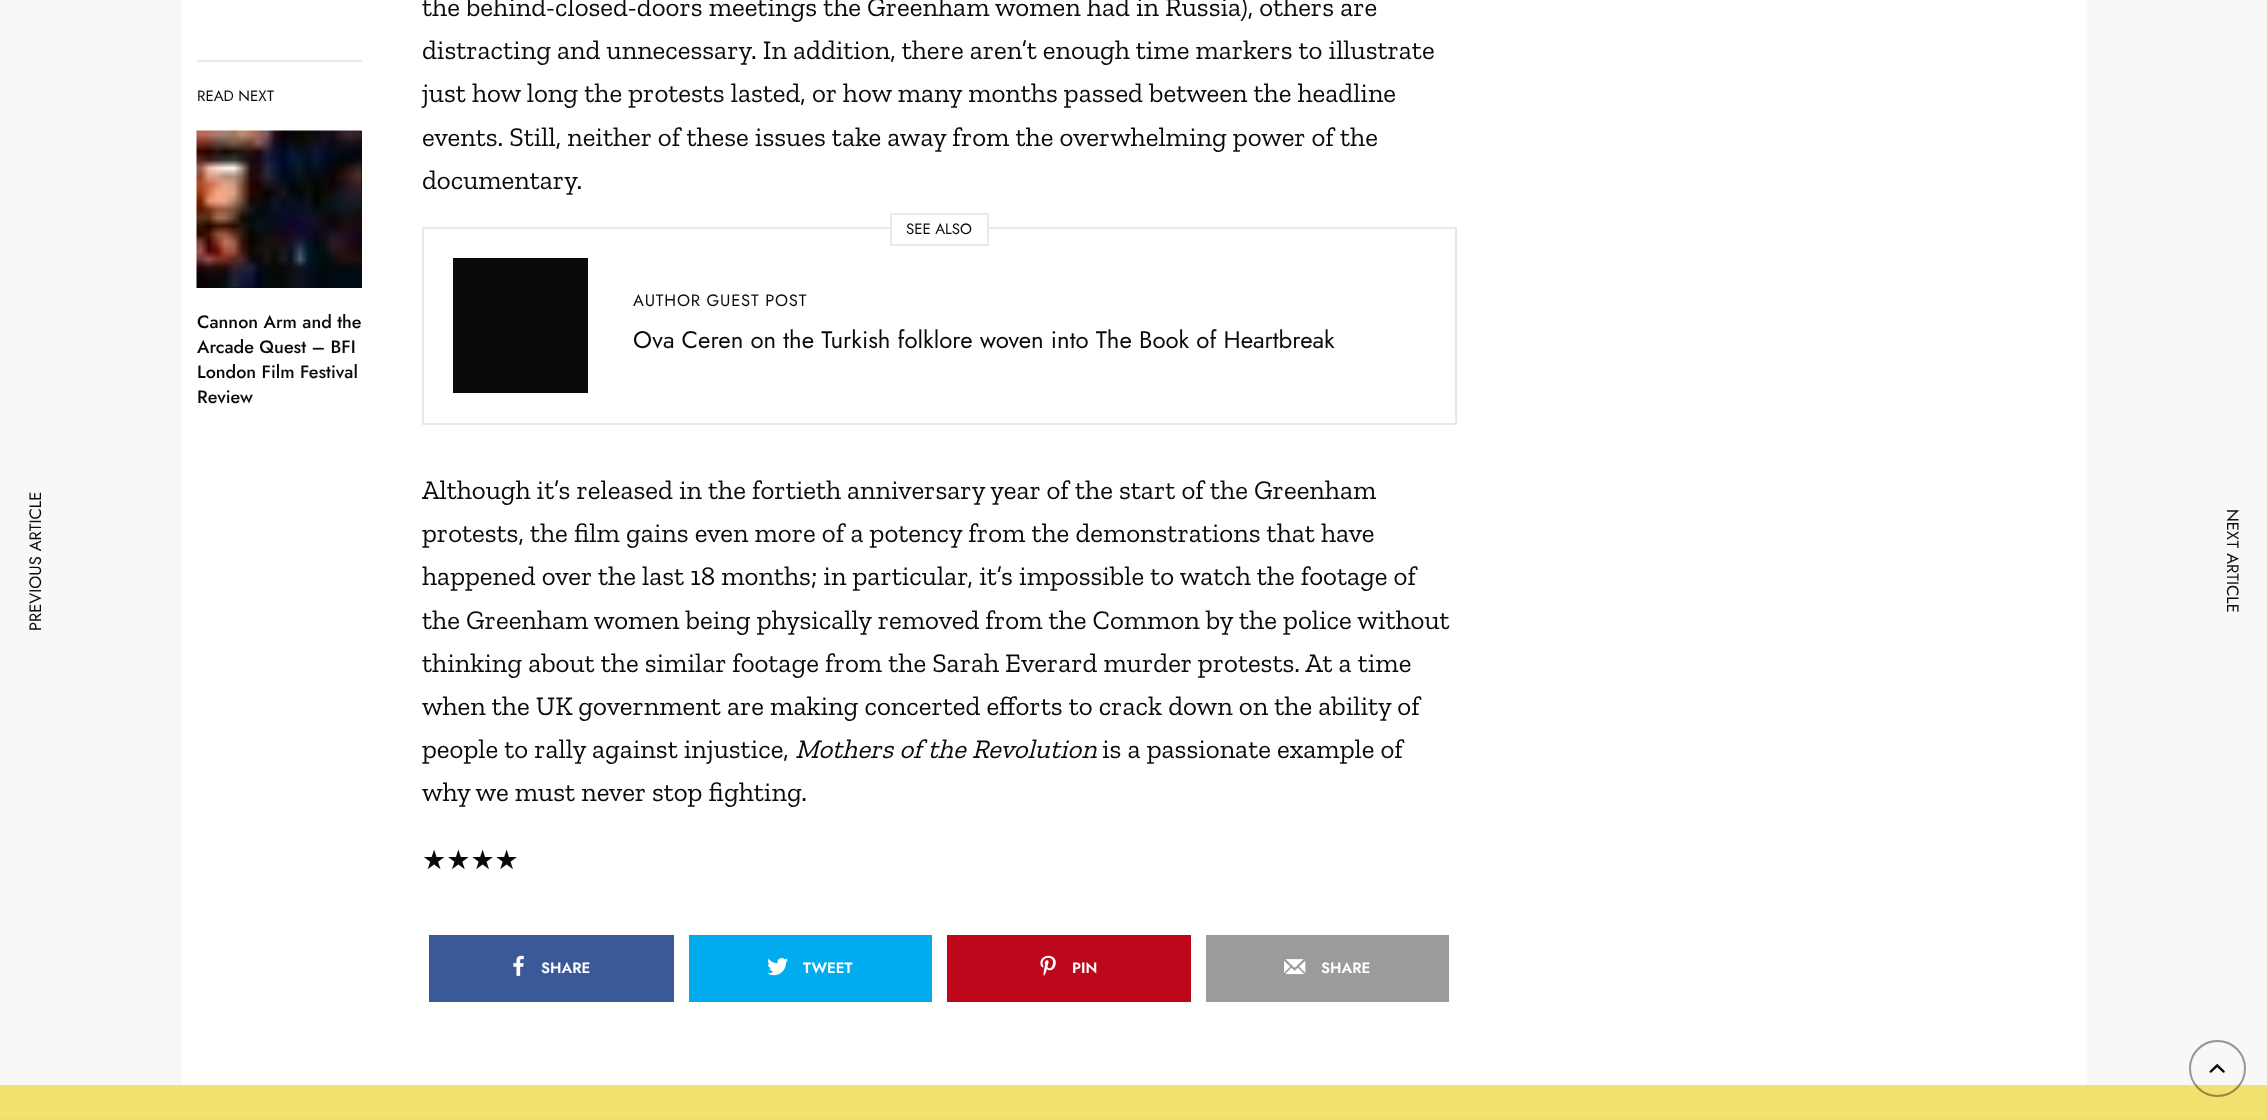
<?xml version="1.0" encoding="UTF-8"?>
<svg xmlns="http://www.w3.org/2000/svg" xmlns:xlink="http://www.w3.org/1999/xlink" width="2267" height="1119">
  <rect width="100%" height="100%" fill="#f8f8f8" />
  <rect x="182" width="1905" height="1085" fill="#ffffff" />
  <rect x="197" y="60" width="165" height="2" fill="#e9e9e9" />
  <rect x="197" y="131" width="165" height="157" fill="#0a0a0a" />
  <image x="196" y="130" width="166" height="158" xlink:href="image1.png" />
  <rect x="423" y="228" width="1033" height="196" fill="none" stroke="#e9e9e9" stroke-width="2" />
  <rect x="892" y="227" width="95" height="2" fill="#ffffff" />
  <rect x="891" y="214" width="97" height="31" fill="none" stroke="#e9e9e9" stroke-width="2" />
  <rect x="453" y="258" width="135" height="135" fill="#0a0a0a" />
  <rect x="429" y="935" width="245" height="67" fill="#3b5998" />
  <image x="513" y="955" width="11" height="21" xlink:href="image2.png" />
  <rect x="689" y="935" width="243" height="67" fill="#00aced" />
  <image x="767" y="958" width="21" height="18" xlink:href="image3.png" />
  <rect x="947" y="935" width="244" height="67" fill="#bd081c" />
  <image x="1040" y="955" width="16" height="21" xlink:href="image4.png" />
  <rect x="1206" y="935" width="243" height="67" fill="#9b9b9b" />
  <image x="1284" y="959" width="22" height="16" xlink:href="image5.png" />
  <rect y="1085" width="2267" height="34" fill="#f2e06f" />
  <circle cx="2217.5" cy="1068.5" r="27.5" fill="none" stroke="#000000" stroke-opacity="0.4" stroke-width="2" />
  <image x="2209" y="1064" width="16" height="9" xlink:href="image6.png" />
  <text x="41" y="631" transform="rotate(-90 41 631)" style="font-family: Jost; font-size: 16.5px; fill: #0a0a0a">PREVIOUS ARTICLE</text>
  <text x="197" y="101" style="font-family: Jost; font-size: 15px; fill: #0a0a0a">READ NEXT</text>
  <text x="197" y="328" style="font-family: Jost; font-size: 18px; font-weight: 500; fill: #0a0a0a">Cannon Arm and the</text>
  <text x="197" y="353" style="font-family: Jost; font-size: 18px; font-weight: 500; fill: #0a0a0a">Arcade Quest – BFI</text>
  <text x="197" y="378" style="font-family: Jost; font-size: 18px; font-weight: 500; fill: #0a0a0a">London Film Festival</text>
  <text x="197" y="403" style="font-family: Jost; font-size: 18px; font-weight: 500; fill: #0a0a0a">Review</text>
  <text x="422" y="16" style="font-family: Zilla Slab; font-size: 27px; fill: #0a0a0a">the behind-closed-doors meetings the Greenham women had in Russia), others are</text>
  <text x="422" y="59" style="font-family: Zilla Slab; font-size: 27px; fill: #0a0a0a">distracting and unnecessary. In addition, there aren’t enough time markers to illustrate</text>
  <text x="422" y="102" style="font-family: Zilla Slab; font-size: 27px; fill: #0a0a0a">just how long the protests lasted, or how many months passed between the headline</text>
  <text x="422" y="146" style="font-family: Zilla Slab; font-size: 27px; fill: #0a0a0a">events. Still, neither of these issues take away from the overwhelming power of the</text>
  <text x="422" y="189" style="font-family: Zilla Slab; font-size: 27px; fill: #0a0a0a">documentary.</text>
  <text x="906" y="234" style="font-family: Jost; font-size: 15px; fill: #0a0a0a">SEE ALSO</text>
  <text x="633" y="306" style="font-family: Jost; font-size: 16.5px; letter-spacing: 0.8px; fill: #0a0a0a">AUTHOR GUEST POST</text>
  <text x="633" y="348" style="font-family: Jost; font-size: 24px; fill: #0a0a0a">Ova Ceren on the Turkish folklore woven into The Book of Heartbreak</text>
  <text x="422" y="499" style="font-family: Zilla Slab; font-size: 27px; fill: #0a0a0a">Although it’s released in the fortieth anniversary year of the start of the Greenham</text>
  <text x="422" y="542" style="font-family: Zilla Slab; font-size: 27px; fill: #0a0a0a">protests, the film gains even more of a potency from the demonstrations that have</text>
  <text x="422" y="585" style="font-family: Zilla Slab; font-size: 27px; fill: #0a0a0a">happened over the last 18 months; in particular, it’s impossible to watch the footage of</text>
  <text x="422" y="629" style="font-family: Zilla Slab; font-size: 27px; fill: #0a0a0a">the Greenham women being physically removed from the Common by the police without</text>
  <text x="422" y="672" style="font-family: Zilla Slab; font-size: 27px; fill: #0a0a0a">thinking about the similar footage from the Sarah Everard murder protests. At a time</text>
  <text x="422" y="715" style="font-family: Zilla Slab; font-size: 27px; fill: #0a0a0a">when the UK government are making concerted efforts to crack down on the ability of</text>
  <text x="422" y="758" style="font-family: Zilla Slab; font-size: 27px; fill: #0a0a0a">people to rally against injustice,</text>
  <text x="795" y="758" style="font-family: Zilla Slab; font-size: 27px; font-style: italic; fill: #0a0a0a">Mothers of the Revolution</text>
  <text x="1102" y="758" style="font-family: Zilla Slab; font-size: 27px; fill: #0a0a0a">is a passionate example of</text>
  <text x="422" y="801" style="font-family: Zilla Slab; font-size: 27px; fill: #0a0a0a">why we must never stop fighting.</text>
  <text x="422" y="869" style="font-family: DejaVu Sans; font-size: 27px; fill: #0a0a0a">★★★★</text>
  <text x="541" y="973" style="font-family: Jost; font-size: 15px; font-weight: 600; fill: #ffffff">SHARE</text>
  <text x="803" y="973" style="font-family: Jost; font-size: 15px; font-weight: 600; fill: #ffffff">TWEET</text>
  <text x="1072" y="973" style="font-family: Jost; font-size: 15px; font-weight: 600; fill: #ffffff">PIN</text>
  <text x="1321" y="973" style="font-family: Jost; font-size: 15px; font-weight: 600; fill: #ffffff">SHARE</text>
  <text x="2227" y="509" transform="rotate(90 2227 509)" style="font-family: Jost; font-size: 16.5px; fill: #0a0a0a">NEXT ARTICLE</text>
</svg>
